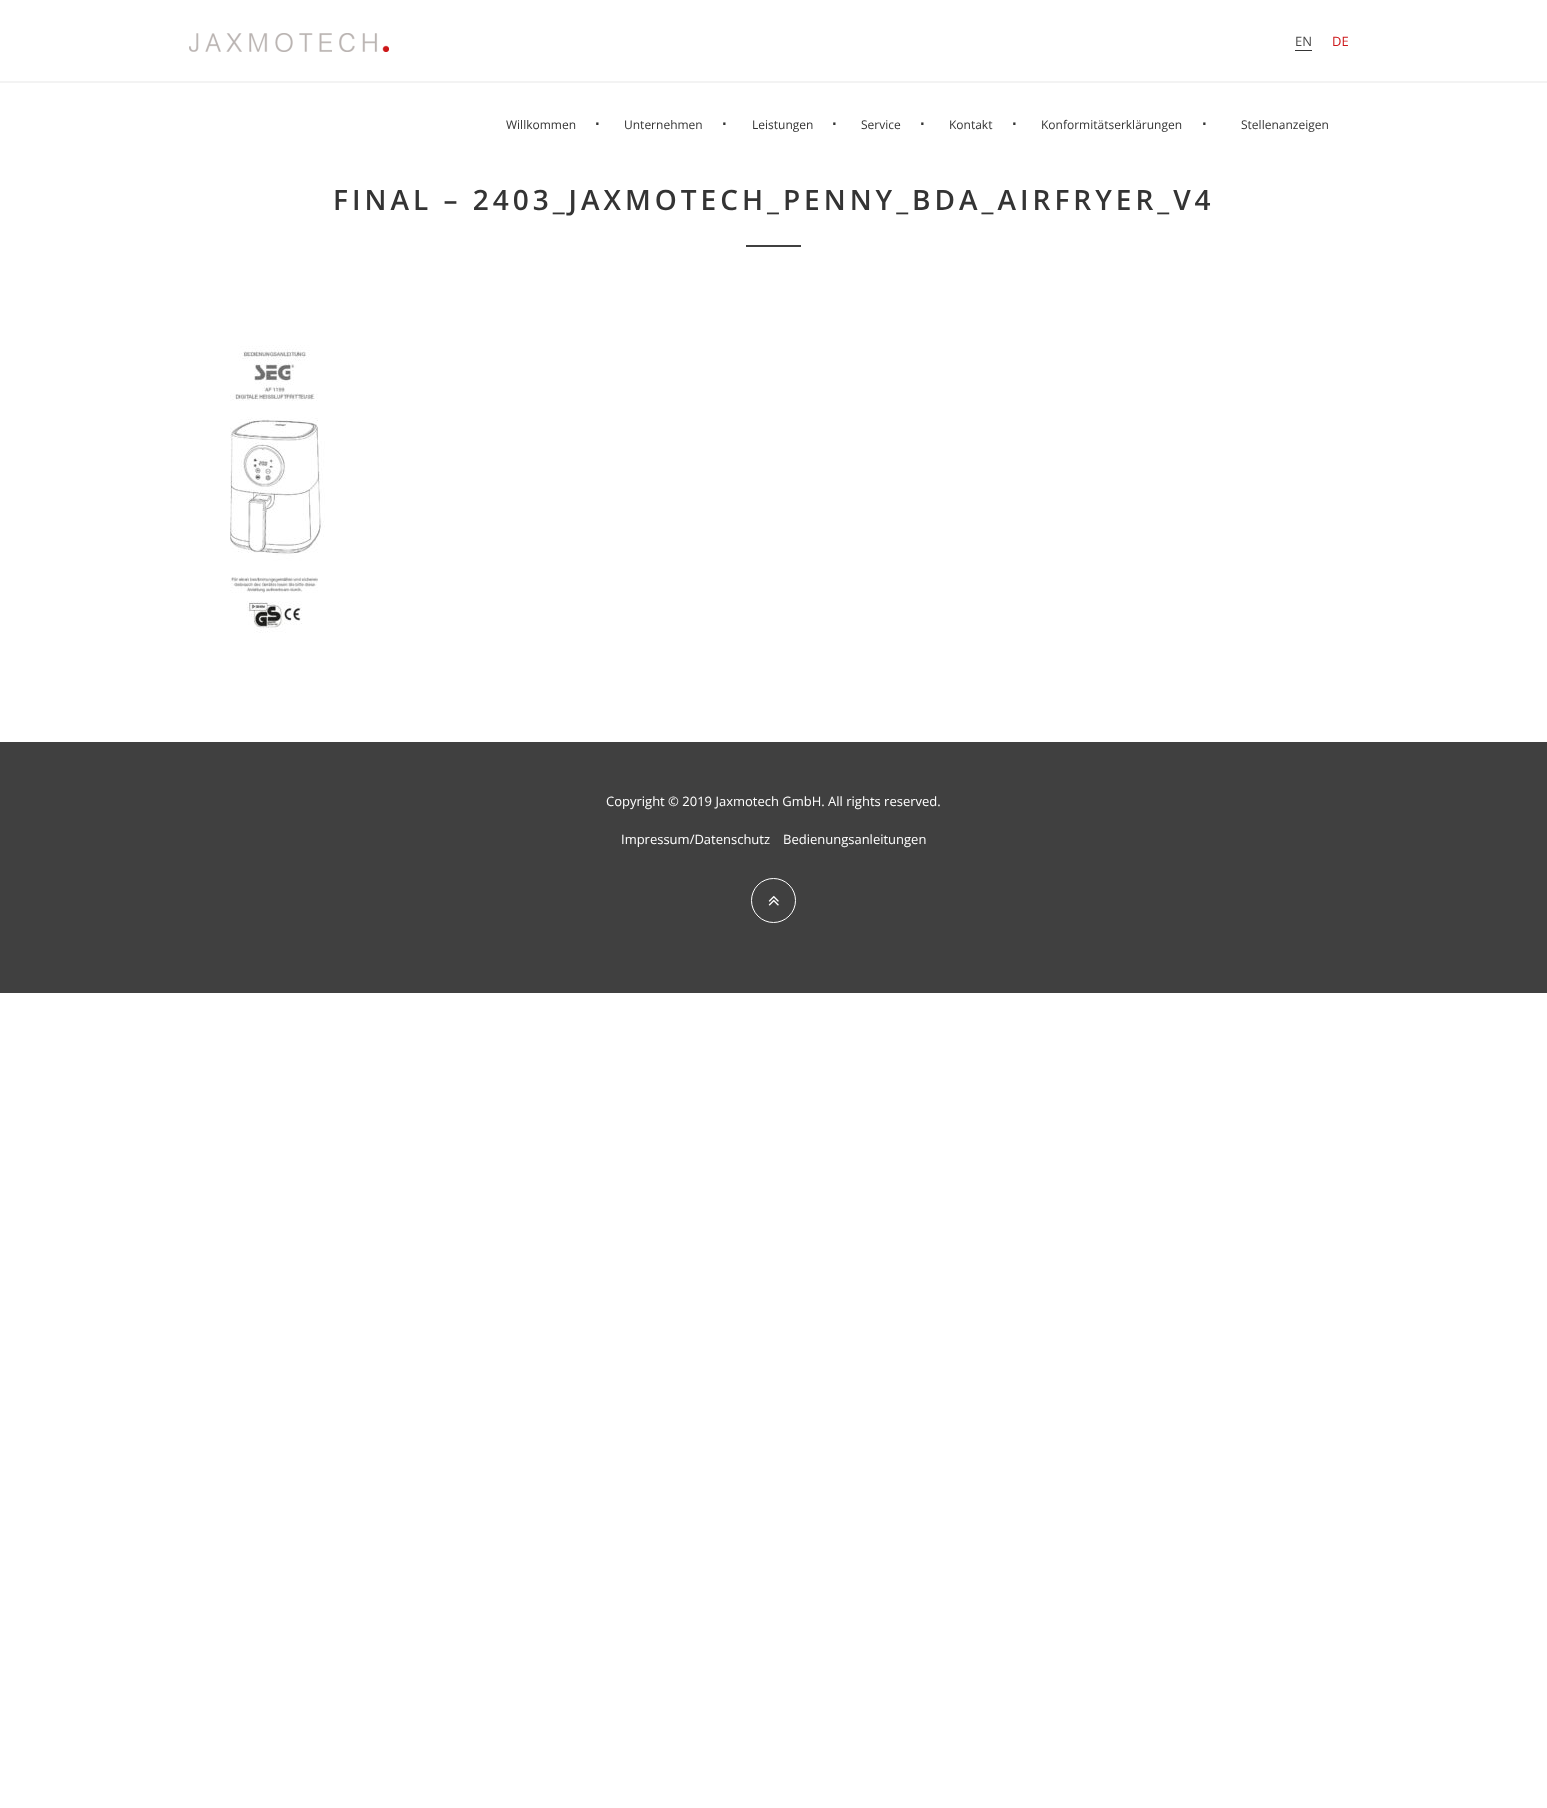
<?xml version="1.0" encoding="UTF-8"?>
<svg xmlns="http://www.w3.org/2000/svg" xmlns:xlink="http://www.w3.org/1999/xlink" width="1547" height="1808">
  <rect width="100%" height="100%" fill="#ffffff" />
  <rect y="81" width="1547" height="2" fill="#f3f3f3" />
  <image x="189" y="33" width="200" height="19" xlink:href="image1.png" />
  <rect x="1295" y="50" width="17" height="1" fill="#343434" />
  <rect x="746" y="245" width="55" height="2" fill="#404040" />
  <image x="230" y="345" width="95" height="288" xlink:href="image2.png" />
  <rect y="742" width="1547" height="251" fill="#404040" />
  <circle cx="773.5" cy="900.5" r="22" fill="none" stroke="#ffffff" />
  <image x="768" y="895" width="11" height="11" xlink:href="image3.png" />
  <text x="1295" y="46" style="font-family: Open Sans; font-size: 13px; fill: #494949">EN</text>
  <text x="1332" y="46" style="font-family: Open Sans; font-size: 13px; fill: #cd1719">DE</text>
  <text x="506" y="129" style="font-family: Open Sans; font-size: 12px; fill: #343434">Willkommen</text>
  <text x="594" y="125" style="font-family: Liberation Sans; font-size: 24px; fill: #343434">.</text>
  <text x="624" y="129" style="font-family: Open Sans; font-size: 12px; fill: #343434">Unternehmen</text>
  <text x="721" y="125" style="font-family: Liberation Sans; font-size: 24px; fill: #343434">.</text>
  <text x="752" y="129" style="font-family: Open Sans; font-size: 12px; fill: #343434">Leistungen</text>
  <text x="831" y="125" style="font-family: Liberation Sans; font-size: 24px; fill: #343434">.</text>
  <text x="861" y="129" style="font-family: Open Sans; font-size: 12px; fill: #343434">Service</text>
  <text x="919" y="125" style="font-family: Liberation Sans; font-size: 24px; fill: #343434">.</text>
  <text x="949" y="129" style="font-family: Open Sans; font-size: 12px; fill: #343434">Kontakt</text>
  <text x="1011" y="125" style="font-family: Liberation Sans; font-size: 24px; fill: #343434">.</text>
  <text x="1041" y="129" style="font-family: Open Sans; font-size: 12px; fill: #343434">Konformitätserklärungen</text>
  <text x="1201" y="125" style="font-family: Liberation Sans; font-size: 24px; fill: #343434">.</text>
  <text x="1241" y="129" style="font-family: Open Sans; font-size: 12px; fill: #343434">Stellenanzeigen</text>
  <text x="333" y="210" style="font-family: Open Sans; font-size: 28px; font-weight: 600; letter-spacing: 4px; fill: #343434">FINAL – 2403_JAXMOTECH_PENNY_BDA_AIRFRYER_V4</text>
  <text x="606" y="806" style="font-family: Open Sans; font-size: 13px; fill: #ffffff">Copyright © 2019 Jaxmotech GmbH. All rights reserved.</text>
  <text x="621" y="844" style="font-family: Open Sans; font-size: 13px; fill: #ffffff">Impressum/Datenschutz</text>
  <text x="783" y="844" style="font-family: Open Sans; font-size: 13px; fill: #ffffff">Bedienungsanleitungen</text>
</svg>
